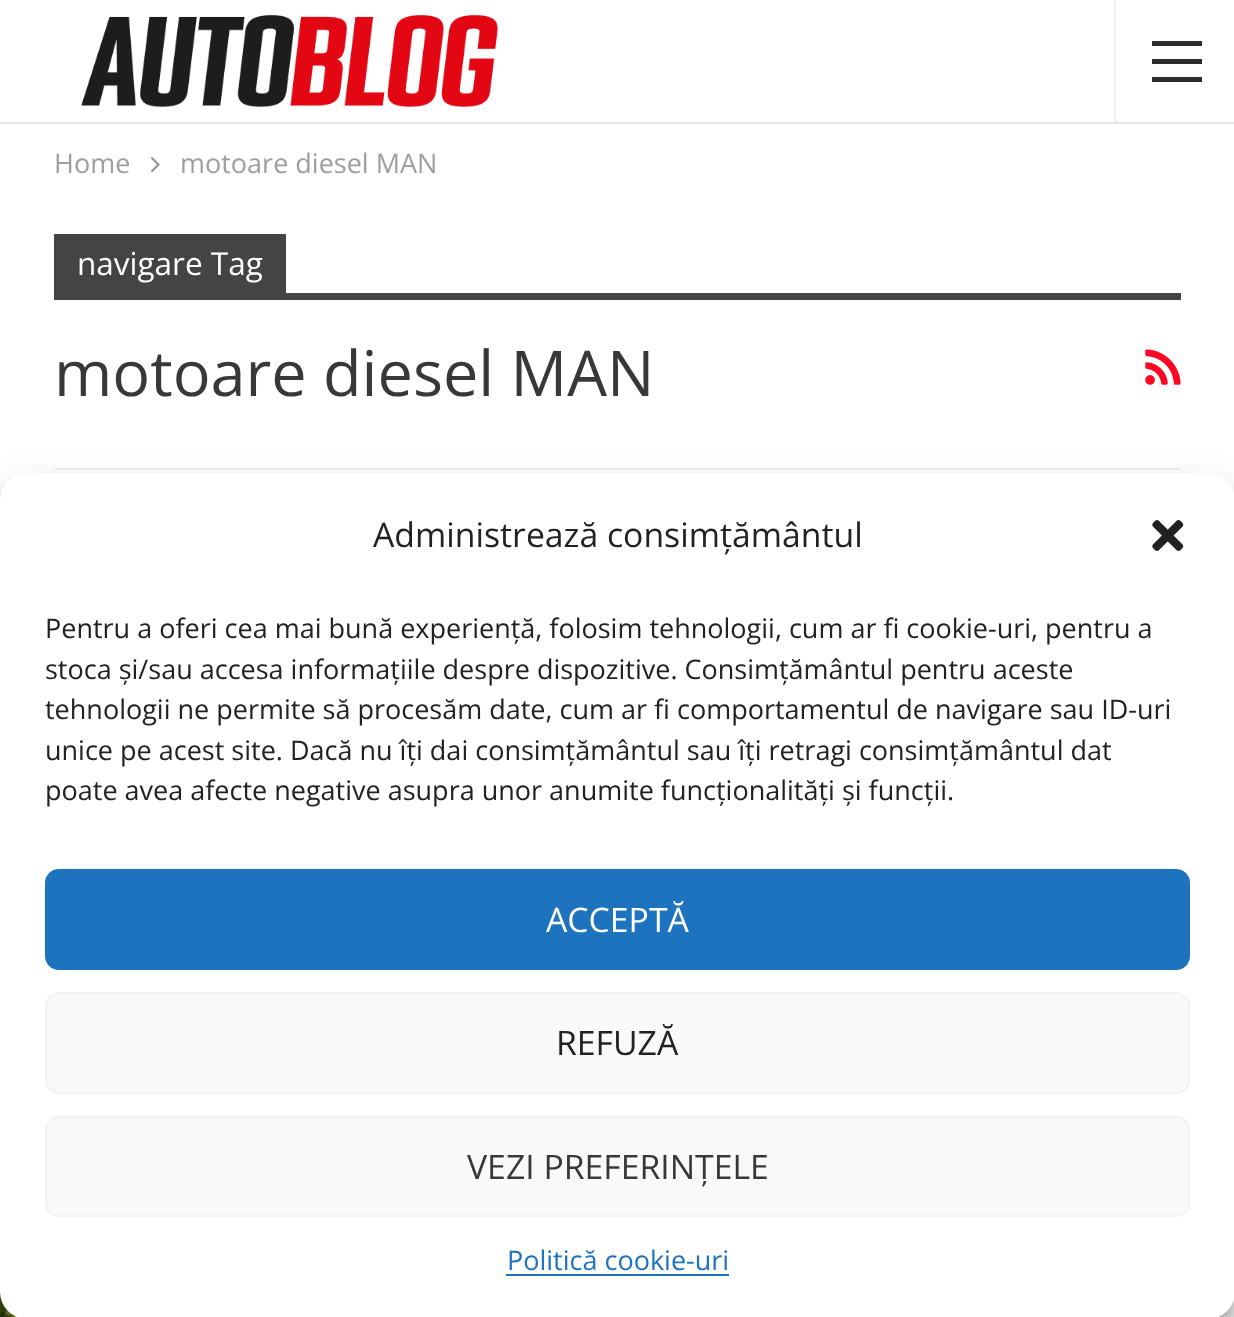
<?xml version="1.0" encoding="UTF-8"?>
<svg xmlns="http://www.w3.org/2000/svg" xmlns:xlink="http://www.w3.org/1999/xlink" width="1234" height="1317">
  <rect width="100%" height="100%" fill="#ffffff" />
  <rect y="122" width="1234" height="2" fill="#e5e5e5" />
  <image x="81" y="15" width="417" height="92" xlink:href="image1.png" />
  <rect x="1114" width="2" height="122" fill="#ededed" />
  <rect x="1152" y="59" width="50" height="5" fill="#2c2c2c" />
  <rect x="1152" y="41" width="50" height="5" fill="#2c2c2c" />
  <rect x="1152" y="77" width="50" height="5" fill="#2c2c2c" />
  <image x="151" y="157" width="9" height="15" xlink:href="image2.png" />
  <rect x="54" y="468" width="1127" height="2" fill="#f0f0f0" />
  <rect x="54" y="234" width="232" height="59" fill="#444444" />
  <rect x="54" y="293" width="1127" height="7" fill="#444444" />
  <image x="1145" y="349" width="36" height="36" xlink:href="image3.png" />
  <image x="0" y="1292" width="17" height="25" xlink:href="image5.png" />
  <rect y="486" width="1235" height="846" rx="27" fill="#000000" fill-opacity="0.23" filter="blur(7px)" />
  <rect y="495" width="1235" height="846" rx="27" fill="#000000" fill-opacity="0.19" filter="blur(22.5px)" />
  <rect y="473" width="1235" height="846" rx="27" fill="#ffffff" />
  <image x="1152" y="520" width="32" height="31" xlink:href="image4.png" />
  <rect x="46" y="870" width="1143" height="99" rx="13" fill="#1e73be" stroke="#1e73be" stroke-width="2" />
  <rect x="46" y="993" width="1143" height="100" rx="13" fill="#f9f9f9" stroke="#f2f2f2" stroke-width="2" />
  <rect x="46" y="1117" width="1143" height="99" rx="13" fill="#f9f9f9" stroke="#f2f2f2" stroke-width="2" />
  <rect x="506" y="1274" width="223" height="2" fill="#1e73be" />
  <text x="54" y="173" style="font-family: Open Sans; font-size: 27px; fill: #9e9e9e">Home</text>
  <text x="180" y="173" style="font-family: Open Sans; font-size: 27px; fill: #9e9e9e">motoare diesel MAN</text>
  <text x="77" y="275" style="font-family: Open Sans; font-size: 31.5px; fill: #ffffff">navigare Tag</text>
  <text x="54" y="396" style="font-family: Open Sans; font-size: 63px; fill: #383838">motoare diesel MAN</text>
  <text x="373" y="547" style="font-family: Open Sans; font-size: 33.75px; fill: #222222">Administrează consimțământul</text>
  <text x="45" y="638" style="font-family: Open Sans; font-size: 27px; fill: #222222">Pentru a oferi cea mai bună experiență, folosim tehnologii, cum ar fi cookie-uri, pentru a</text>
  <text x="45" y="679" style="font-family: Open Sans; font-size: 27px; fill: #222222">stoca și/sau accesa informațiile despre dispozitive. Consimțământul pentru aceste</text>
  <text x="45" y="719" style="font-family: Open Sans; font-size: 27px; fill: #222222">tehnologii ne permite să procesăm date, cum ar fi comportamentul de navigare sau ID-uri</text>
  <text x="45" y="760" style="font-family: Open Sans; font-size: 27px; fill: #222222">unice pe acest site. Dacă nu îți dai consimțământul sau îți retragi consimțământul dat</text>
  <text x="45" y="800" style="font-family: Open Sans; font-size: 27px; fill: #222222">poate avea afecte negative asupra unor anumite funcționalități și funcții.</text>
  <text x="546" y="932" style="font-family: Open Sans; font-size: 33.75px; fill: #ffffff">ACCEPTĂ</text>
  <text x="556" y="1055" style="font-family: Open Sans; font-size: 33.75px; fill: #222222">REFUZĂ</text>
  <text x="467" y="1179" style="font-family: Open Sans; font-size: 33.75px; fill: #383838">VEZI PREFERINȚELE</text>
  <text x="507" y="1270" style="font-family: Open Sans; font-size: 27px; fill: #1e73be">Politică cookie-uri</text>
</svg>
